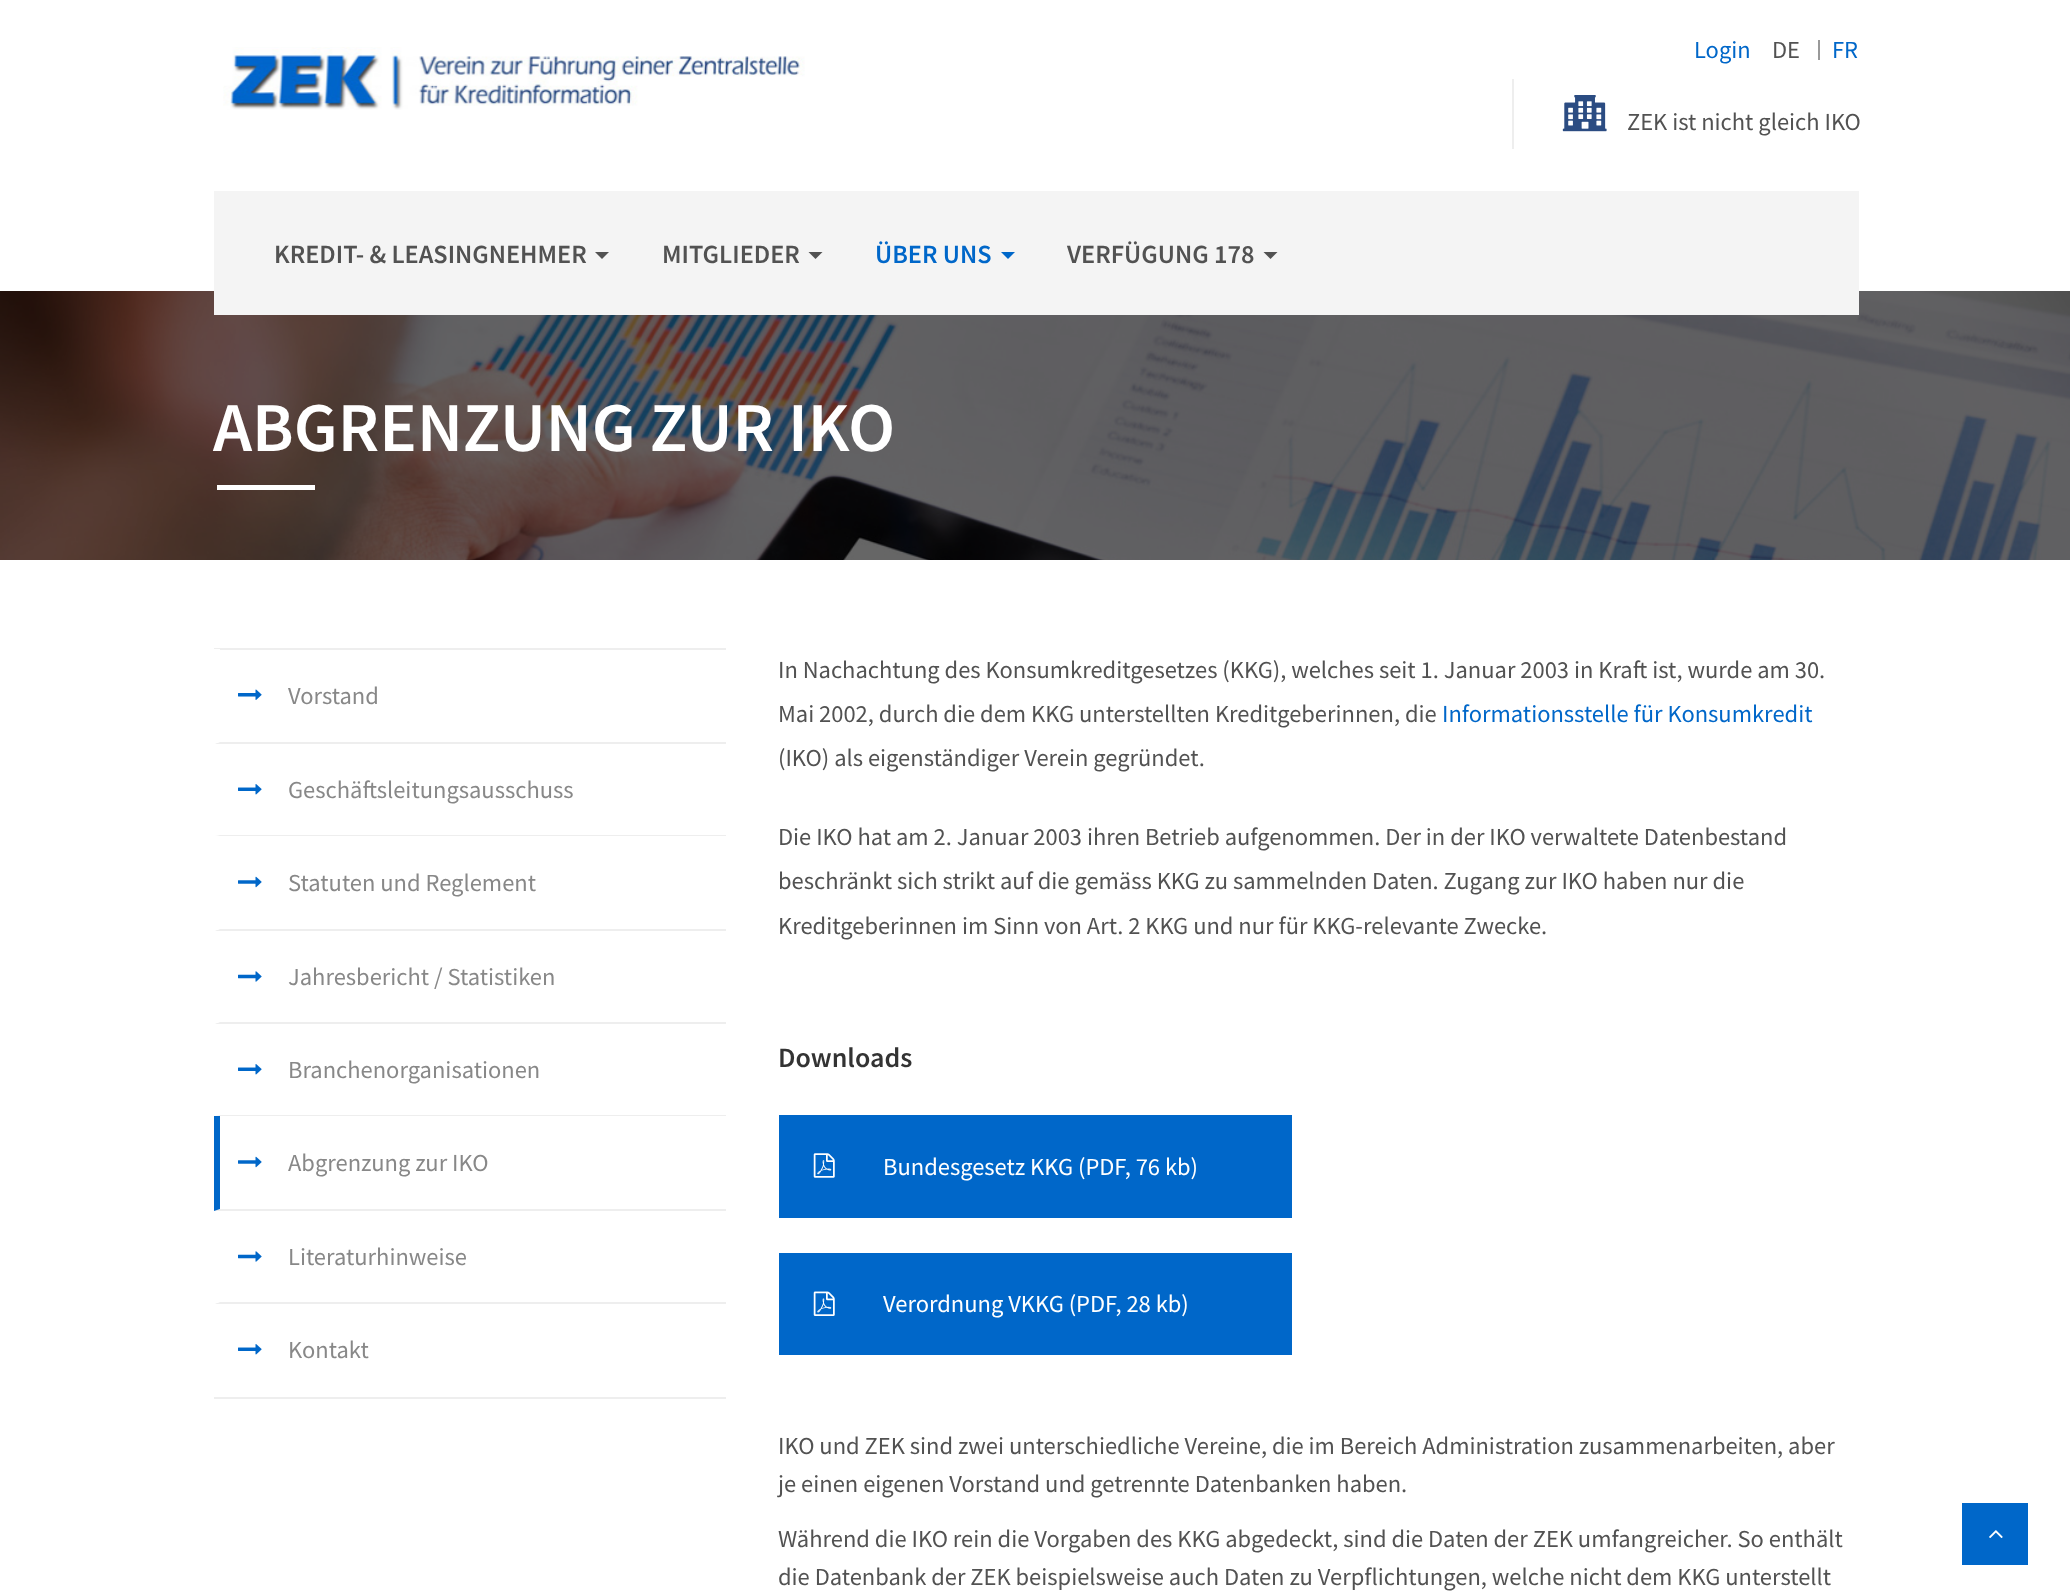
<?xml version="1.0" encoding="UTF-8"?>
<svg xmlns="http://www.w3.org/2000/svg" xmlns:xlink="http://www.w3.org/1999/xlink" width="2070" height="1595">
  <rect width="100%" height="100%" fill="#ffffff" />
  <image x="223" y="47" width="582" height="63" xlink:href="image1.png" />
  <rect x="1818" y="40" width="2" height="20" fill="#999999" />
  <rect x="1512" y="79" width="2" height="70" fill="#eeeeee" />
  <image x="1562" y="95" width="45" height="37" xlink:href="image2.png" />
  <image x="0" y="291" width="2070" height="269" xlink:href="image3.png" />
  <rect x="214" y="191" width="1645" height="124" fill="#f4f4f4" />
  <path d="M 595 252 h 14 l -7 7 z" fill="#525252" />
  <path d="M 808.5 252 h 14 l -7 7 z" fill="#525252" />
  <path d="M 1001 252 h 14 l -7 7 z" fill="#0067c9" />
  <path d="M 1263.5 252 h 14 l -7 7 z" fill="#525252" />
  <rect x="217" y="485" width="98" height="5" fill="#ffffff" />
  <rect x="214" y="1397" width="512" height="2" fill="#eeeeee" />
  <rect x="214" y="648" width="512" height="2" fill="#eeeeee" />
  <path d="M 726 744 h -512 l 6 -2 h 506 z" fill="#eeeeee" />
  <path d="M 214 744 v -95 h 6 v 93 z" fill="#ffffff" />
  <image x="238" y="689" width="24" height="11" xlink:href="image4.png" />
  <path d="M 726 836 h -512 l 6 -1 h 506 z" fill="#eeeeee" />
  <path d="M 214 836 v -92 h 6 v 91 z" fill="#ffffff" />
  <image x="238" y="784" width="24" height="11" xlink:href="image5.png" />
  <path d="M 726 931 h -512 l 6 -2 h 506 z" fill="#eeeeee" />
  <path d="M 214 931 v -95 h 6 v 93 z" fill="#ffffff" />
  <image x="238" y="876" width="24" height="12" xlink:href="image6.png" />
  <path d="M 726 1024 h -512 l 6 -2 h 506 z" fill="#eeeeee" />
  <path d="M 214 1024 v -93 h 6 v 91 z" fill="#ffffff" />
  <image x="238" y="971" width="24" height="11" xlink:href="image7.png" />
  <path d="M 726 1116 h -512 l 6 -1 h 506 z" fill="#eeeeee" />
  <path d="M 214 1116 v -92 h 6 v 91 z" fill="#ffffff" />
  <image x="238" y="1064" width="24" height="11" xlink:href="image5.png" />
  <path d="M 726 1211 h -512 l 6 -2 h 506 z" fill="#eeeeee" />
  <path d="M 214 1211 v -95 h 6 v 93 z" fill="#0067c9" />
  <image x="238" y="1156" width="24" height="12" xlink:href="image6.png" />
  <path d="M 726 1304 h -512 l 6 -2 h 506 z" fill="#eeeeee" />
  <path d="M 214 1304 v -93 h 6 v 91 z" fill="#ffffff" />
  <image x="238" y="1251" width="24" height="11" xlink:href="image7.png" />
  <image x="238" y="1344" width="24" height="11" xlink:href="image5.png" />
  <rect x="779" y="1115" width="513" height="103" fill="#0067c9" />
  <image x="813" y="1153" width="22" height="25" xlink:href="image8.png" />
  <rect x="779" y="1253" width="513" height="102" fill="#0067c9" />
  <image x="813" y="1291" width="22" height="25" xlink:href="image9.png" />
  <rect x="1962" y="1503" width="66" height="62" fill="#0067c9" />
  <image x="1989" y="1530" width="14" height="8" xlink:href="image10.png" />
  <text x="1694" y="58" style="font-family: Source Sans Pro; font-size: 24.5px; fill: #0067c9">Login</text>
  <text x="1772" y="58" style="font-family: Source Sans Pro; font-size: 24.5px; fill: #525252">DE</text>
  <text x="1832" y="58" style="font-family: Source Sans Pro; font-size: 24.5px; fill: #0067c9">FR</text>
  <text x="1627" y="130" style="font-family: Source Sans Pro; font-size: 24.5px; fill: #525252">ZEK ist nicht gleich IKO</text>
  <text x="274" y="263" style="font-family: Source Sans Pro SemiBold; font-size: 26.25px; font-weight: 600; fill: #525252">KREDIT- &amp; LEASINGNEHMER</text>
  <text x="662" y="263" style="font-family: Source Sans Pro SemiBold; font-size: 26.25px; font-weight: 600; fill: #525252">MITGLIEDER</text>
  <text x="875" y="263" style="font-family: Source Sans Pro SemiBold; font-size: 26.25px; font-weight: 600; fill: #0067c9">ÜBER UNS</text>
  <text x="1067" y="263" style="font-family: Source Sans Pro SemiBold; font-size: 26.25px; font-weight: 600; fill: #525252">VERFÜGUNG 178</text>
  <text x="213" y="451" style="font-family: Source Sans Pro SemiBold; font-size: 70px; font-weight: 600; fill: #ffffff">ABGRENZUNG ZUR IKO</text>
  <text x="288" y="704" style="font-family: Source Sans Pro; font-size: 24.5px; fill: #888888">Vorstand</text>
  <text x="288" y="798" style="font-family: Source Sans Pro; font-size: 24.5px; fill: #888888">Geschäftsleitungsausschuss</text>
  <text x="288" y="891" style="font-family: Source Sans Pro; font-size: 24.5px; fill: #888888">Statuten und Reglement</text>
  <text x="288" y="985" style="font-family: Source Sans Pro; font-size: 24.5px; fill: #888888">Jahresbericht / Statistiken</text>
  <text x="288" y="1078" style="font-family: Source Sans Pro; font-size: 24.5px; fill: #888888">Branchenorganisationen</text>
  <text x="288" y="1171" style="font-family: Source Sans Pro; font-size: 24.5px; fill: #888888">Abgrenzung zur IKO</text>
  <text x="288" y="1265" style="font-family: Source Sans Pro; font-size: 24.5px; fill: #888888">Literaturhinweise</text>
  <text x="288" y="1358" style="font-family: Source Sans Pro; font-size: 24.5px; fill: #888888">Kontakt</text>
  <text x="778" y="678" style="font-family: Source Sans Pro; font-size: 24.5px; fill: #525252">In Nachachtung des Konsumkreditgesetzes (KKG), welches seit 1. Januar 2003 in Kraft ist, wurde am 30.</text>
  <text x="778" y="722" style="font-family: Source Sans Pro; font-size: 24.5px; fill: #525252">Mai 2002, durch die dem KKG unterstellten Kreditgeberinnen, die</text>
  <text x="1442" y="722" style="font-family: Source Sans Pro; font-size: 24.5px; fill: #0067c9">Informationsstelle für Konsumkredit</text>
  <text x="778" y="766" style="font-family: Source Sans Pro; font-size: 24.5px; fill: #525252">(IKO) als eigenständiger Verein gegründet.</text>
  <text x="778" y="845" style="font-family: Source Sans Pro; font-size: 24.5px; fill: #525252">Die IKO hat am 2. Januar 2003 ihren Betrieb aufgenommen. Der in der IKO verwaltete Datenbestand</text>
  <text x="778" y="889" style="font-family: Source Sans Pro; font-size: 24.5px; fill: #525252">beschränkt sich strikt auf die gemäss KKG zu sammelnden Daten. Zugang zur IKO haben nur die</text>
  <text x="778" y="934" style="font-family: Source Sans Pro; font-size: 24.5px; fill: #525252">Kreditgeberinnen im Sinn von Art. 2 KKG und nur für KKG-relevante Zwecke.</text>
  <text x="778" y="1067" style="font-family: Source Sans Pro SemiBold; font-size: 28px; font-weight: 600; fill: #333333">Downloads</text>
  <text x="883" y="1175" style="font-family: Source Sans Pro; font-size: 24.5px; fill: #ffffff">Bundesgesetz KKG (PDF, 76 kb)</text>
  <text x="883" y="1312" style="font-family: Source Sans Pro; font-size: 24.5px; fill: #ffffff">Verordnung VKKG (PDF, 28 kb)</text>
  <text x="778" y="1454" style="font-family: Source Sans Pro; font-size: 24.5px; fill: #525252">IKO und ZEK sind zwei unterschiedliche Vereine, die im Bereich Administration zusammenarbeiten, aber</text>
  <text x="778" y="1492" style="font-family: Source Sans Pro; font-size: 24.5px; fill: #525252">je einen eigenen Vorstand und getrennte Datenbanken haben.</text>
  <text x="778" y="1547" style="font-family: Source Sans Pro; font-size: 24.5px; fill: #525252">Während die IKO rein die Vorgaben des KKG abgedeckt, sind die Daten der ZEK umfangreicher. So enthält</text>
  <text x="778" y="1585" style="font-family: Source Sans Pro; font-size: 24.5px; fill: #525252">die Datenbank der ZEK beispielsweise auch Daten zu Verpflichtungen, welche nicht dem KKG unterstellt</text>
</svg>
